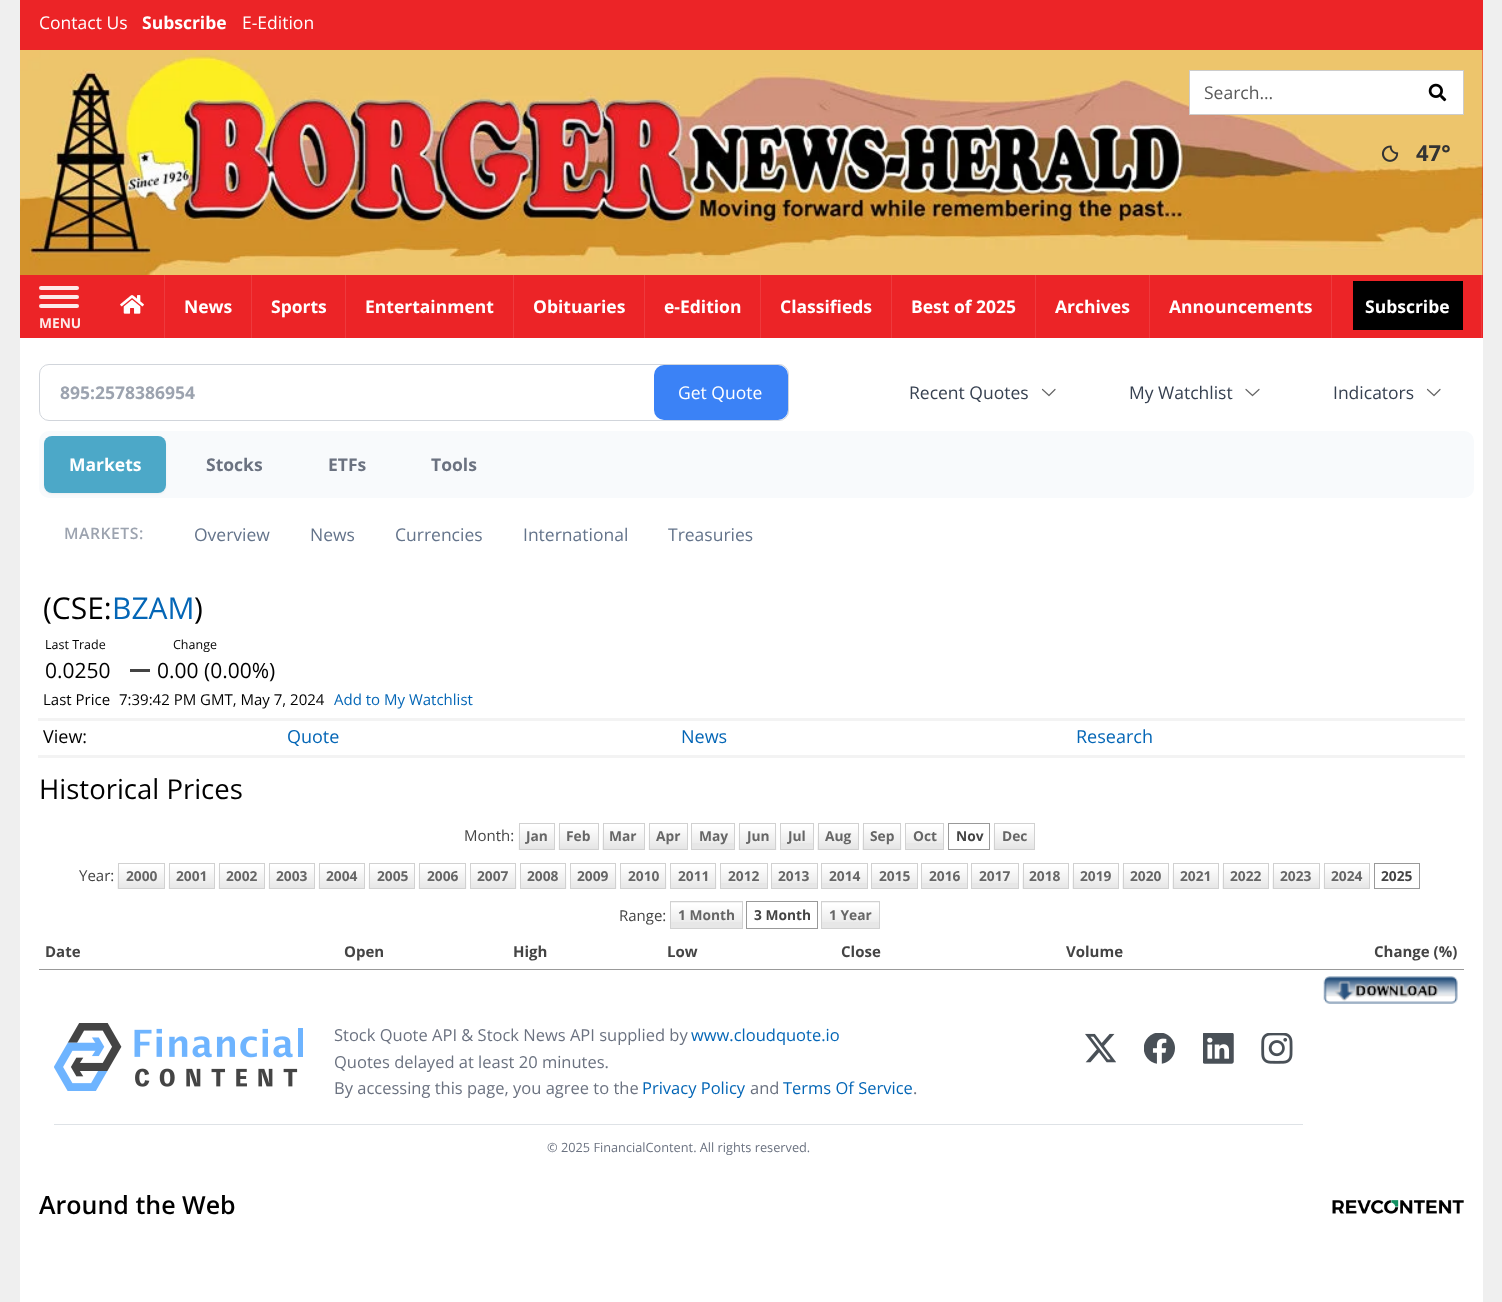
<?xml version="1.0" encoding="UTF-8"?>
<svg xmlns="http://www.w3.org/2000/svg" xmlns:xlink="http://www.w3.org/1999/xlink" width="1502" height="1302">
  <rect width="100%" height="100%" fill="#efefef" />
  <rect x="20" width="1463" height="50" fill="#ec2427" />
  <rect x="1482" y="50" width="1" height="225" fill="#ec2427" />
  <image x="20" y="50" width="1463" height="225" xlink:href="image1.png" />
  <rect x="1189.5" y="70.5" width="274" height="44" fill="#ffffff" stroke="#cccccc" />
  <image x="1428" y="83" width="19" height="19" xlink:href="image2.png" />
  <image x="1381" y="145" width="18" height="17" xlink:href="image3.png" />
  <rect x="20" y="275" width="1463" height="63" fill="#ec2427" />
  <rect x="164" y="275" width="1" height="63" fill="#ee3a3d" />
  <image x="120" y="295" width="24" height="19" xlink:href="image4.png" />
  <rect x="251" y="275" width="1" height="63" fill="#ee3a3d" />
  <rect x="345" y="275" width="1" height="63" fill="#ee3a3d" />
  <rect x="513" y="275" width="1" height="63" fill="#ee3a3d" />
  <rect x="644" y="275" width="1" height="63" fill="#ee3a3d" />
  <rect x="760" y="275" width="1" height="63" fill="#ee3a3d" />
  <rect x="891" y="275" width="1" height="63" fill="#ee3a3d" />
  <rect x="1035" y="275" width="1" height="63" fill="#ee3a3d" />
  <rect x="1149" y="275" width="1" height="63" fill="#ee3a3d" />
  <rect x="1331" y="275" width="1" height="63" fill="#ee3a3d" />
  <rect x="1481" y="275" width="1" height="63" fill="#ee3a3d" />
  <rect x="1353" y="281" width="110" height="49" fill="#000000" />
  <rect x="39" y="286" width="40" height="4" rx="2" fill="#fde9e9" />
  <rect x="39" y="295" width="40" height="4" rx="2" fill="#fde9e9" />
  <rect x="39" y="304" width="40" height="4" rx="2" fill="#fde9e9" />
  <rect x="20" y="338" width="1463" height="964" fill="#ffffff" />
  <rect x="39.5" y="364.5" width="749" height="56" rx="9.5" fill="none" stroke="#d1d5db" />
  <rect x="654" y="365" width="134" height="55" rx="10" fill="#3b82f6" />
  <path d="M 1055 389.5 l -6 6 l -6.5 -6" fill="none" stroke="#666666" stroke-width="1.2" stroke-linecap="round" stroke-linejoin="round" />
  <path d="M 1259 389.5 l -6.5 6 l -6.5 -6" fill="none" stroke="#666666" stroke-width="1.2" stroke-linecap="round" stroke-linejoin="round" />
  <path d="M 1440 389.5 l -6 6 l -6.5 -6" fill="none" stroke="#666666" stroke-width="1.2" stroke-linecap="round" stroke-linejoin="round" />
  <rect x="39" y="431" width="1435" height="67" rx="10" fill="#f8fafc" />
  <rect x="44" y="438" width="122" height="56" rx="8" fill="#000000" fill-opacity="0.05" filter="blur(1px)" />
  <rect x="44" y="436" width="122" height="57" rx="8" fill="#4ca8c8" />
  <rect x="130" y="669" width="20" height="3" fill="#444444" />
  <rect x="38" y="718" width="1427" height="3" fill="#f3f3f3" />
  <rect x="38" y="755" width="1427" height="3" fill="#f3f3f3" />
  <image x="518" y="823" width="36" height="27" xlink:href="image5.png" />
  <rect x="519.5" y="823.5" width="35" height="26" fill="none" stroke="#d1d1d1" />
  <image x="558" y="823" width="40" height="27" xlink:href="image6.png" />
  <rect x="559.5" y="823.5" width="39" height="26" fill="none" stroke="#d1d1d1" />
  <image x="602" y="823" width="42" height="27" xlink:href="image7.png" />
  <rect x="603.5" y="823.5" width="41" height="26" fill="none" stroke="#d1d1d1" />
  <image x="648" y="823" width="39" height="27" xlink:href="image8.png" />
  <rect x="649.5" y="823.5" width="38" height="26" fill="none" stroke="#d1d1d1" />
  <rect x="692" y="843" width="42" height="6" fill="#e7e7e7" />
  <image x="692" y="824" width="42" height="19" xlink:href="image9.png" />
  <rect x="691.5" y="823.5" width="43" height="26" fill="none" stroke="#d1d1d1" />
  <image x="738" y="823" width="39" height="27" xlink:href="image10.png" />
  <rect x="739.5" y="823.5" width="36" height="26" fill="none" stroke="#d1d1d1" />
  <rect x="781" y="843" width="32" height="6" fill="#e7e7e7" />
  <image x="781" y="824" width="32" height="19" xlink:href="image11.png" />
  <rect x="780.5" y="823.5" width="33" height="26" fill="none" stroke="#d1d1d1" />
  <image x="817" y="823" width="41" height="27" xlink:href="image12.png" />
  <rect x="818.5" y="823.5" width="40" height="26" fill="none" stroke="#d1d1d1" />
  <image x="862" y="823" width="40" height="27" xlink:href="image13.png" />
  <rect x="863.5" y="823.5" width="37" height="26" fill="none" stroke="#d1d1d1" />
  <rect x="906" y="843" width="37" height="6" fill="#e7e7e7" />
  <image x="906" y="824" width="37" height="19" xlink:href="image14.png" />
  <rect x="905.5" y="823.5" width="38" height="26" fill="none" stroke="#d1d1d1" />
  <rect x="948.5" y="823.5" width="41" height="26" fill="none" stroke="#999999" />
  <image x="993" y="823" width="41" height="27" xlink:href="image15.png" />
  <rect x="994.5" y="823.5" width="40" height="26" fill="none" stroke="#d1d1d1" />
  <image x="117" y="863" width="47" height="26" xlink:href="image16.png" />
  <rect x="118.5" y="863.5" width="46" height="25" fill="none" stroke="#d1d1d1" />
  <image x="168" y="863" width="46" height="26" xlink:href="image17.png" />
  <rect x="169.5" y="863.5" width="45" height="25" fill="none" stroke="#d1d1d1" />
  <image x="218" y="863" width="46" height="26" xlink:href="image17.png" />
  <rect x="219.5" y="863.5" width="45" height="25" fill="none" stroke="#d1d1d1" />
  <image x="268" y="863" width="46" height="26" xlink:href="image17.png" />
  <rect x="269.5" y="863.5" width="45" height="25" fill="none" stroke="#d1d1d1" />
  <image x="318" y="863" width="46" height="26" xlink:href="image17.png" />
  <rect x="319.5" y="863.5" width="45" height="25" fill="none" stroke="#d1d1d1" />
  <image x="368" y="863" width="46" height="26" xlink:href="image17.png" />
  <rect x="369.5" y="863.5" width="45" height="25" fill="none" stroke="#d1d1d1" />
  <image x="418" y="863" width="49" height="26" xlink:href="image18.png" />
  <rect x="419.5" y="863.5" width="46" height="25" fill="none" stroke="#d1d1d1" />
  <image x="471" y="863" width="46" height="26" xlink:href="image19.png" />
  <rect x="470.5" y="863.5" width="45" height="25" fill="none" stroke="#d1d1d1" />
  <image x="521" y="863" width="46" height="26" xlink:href="image19.png" />
  <rect x="520.5" y="863.5" width="45" height="25" fill="none" stroke="#d1d1d1" />
  <image x="571" y="863" width="46" height="26" xlink:href="image19.png" />
  <rect x="570.5" y="863.5" width="45" height="25" fill="none" stroke="#d1d1d1" />
  <image x="621" y="863" width="46" height="26" xlink:href="image19.png" />
  <rect x="620.5" y="863.5" width="45" height="25" fill="none" stroke="#d1d1d1" />
  <image x="671" y="863" width="46" height="26" xlink:href="image19.png" />
  <rect x="670.5" y="863.5" width="45" height="25" fill="none" stroke="#d1d1d1" />
  <rect x="721" y="883" width="46" height="5" fill="#e7e7e7" />
  <image x="721" y="864" width="46" height="19" xlink:href="image20.png" />
  <rect x="720.5" y="863.5" width="47" height="25" fill="none" stroke="#d1d1d1" />
  <rect x="772" y="883" width="45" height="5" fill="#e7e7e7" />
  <image x="772" y="864" width="45" height="19" xlink:href="image21.png" />
  <rect x="771.5" y="863.5" width="46" height="25" fill="none" stroke="#d1d1d1" />
  <rect x="822" y="883" width="45" height="5" fill="#e7e7e7" />
  <image x="822" y="864" width="45" height="19" xlink:href="image21.png" />
  <rect x="821.5" y="863.5" width="46" height="25" fill="none" stroke="#d1d1d1" />
  <rect x="872" y="883" width="45" height="5" fill="#e7e7e7" />
  <image x="872" y="864" width="45" height="19" xlink:href="image21.png" />
  <rect x="871.5" y="863.5" width="46" height="25" fill="none" stroke="#d1d1d1" />
  <rect x="922" y="883" width="45" height="5" fill="#e7e7e7" />
  <image x="922" y="864" width="45" height="19" xlink:href="image21.png" />
  <rect x="921.5" y="863.5" width="46" height="25" fill="none" stroke="#d1d1d1" />
  <rect x="972" y="883" width="46" height="5" fill="#e7e7e7" />
  <image x="972" y="864" width="46" height="19" xlink:href="image20.png" />
  <rect x="971.5" y="863.5" width="47" height="25" fill="none" stroke="#d1d1d1" />
  <image x="1022" y="863" width="46" height="26" xlink:href="image22.png" />
  <rect x="1023.5" y="863.5" width="45" height="25" fill="none" stroke="#d1d1d1" />
  <image x="1072" y="863" width="46" height="26" xlink:href="image22.png" />
  <rect x="1073.5" y="863.5" width="45" height="25" fill="none" stroke="#d1d1d1" />
  <image x="1122" y="863" width="46" height="26" xlink:href="image22.png" />
  <rect x="1123.5" y="863.5" width="45" height="25" fill="none" stroke="#d1d1d1" />
  <image x="1172" y="863" width="46" height="26" xlink:href="image22.png" />
  <rect x="1173.5" y="863.5" width="45" height="25" fill="none" stroke="#d1d1d1" />
  <image x="1222" y="863" width="46" height="26" xlink:href="image22.png" />
  <rect x="1223.5" y="863.5" width="45" height="25" fill="none" stroke="#d1d1d1" />
  <image x="1272" y="863" width="47" height="26" xlink:href="image16.png" />
  <rect x="1273.5" y="863.5" width="46" height="25" fill="none" stroke="#d1d1d1" />
  <image x="1323" y="863" width="46" height="26" xlink:href="image17.png" />
  <rect x="1324.5" y="863.5" width="45" height="25" fill="none" stroke="#d1d1d1" />
  <rect x="1374.5" y="863.5" width="45" height="25" fill="none" stroke="#999999" />
  <rect x="671" y="902" width="71" height="26" fill="#e7e7e7" />
  <image x="671" y="902" width="71" height="20" xlink:href="image23.png" />
  <rect x="670.5" y="901.5" width="72" height="27" fill="none" stroke="#d1d1d1" />
  <rect x="746.5" y="901.5" width="71" height="27" fill="none" stroke="#999999" />
  <rect x="822" y="902" width="57" height="26" fill="#e7e7e7" />
  <image x="822" y="902" width="57" height="20" xlink:href="image24.png" />
  <rect x="821.5" y="901.5" width="58" height="27" fill="none" stroke="#d1d1d1" />
  <rect x="39" y="969" width="1425" height="1" fill="#999999" />
  <image x="1323" y="976" width="135" height="28" xlink:href="image25.png" />
  <image x="54" y="1023" width="249" height="68" xlink:href="image26.png" />
  <image x="1085" y="1033" width="31" height="30" xlink:href="image27.png" />
  <image x="1144" y="1033" width="31" height="31" xlink:href="image28.png" />
  <image x="1203" y="1033" width="31" height="31" xlink:href="image29.png" />
  <image x="1261" y="1033" width="32" height="31" xlink:href="image30.png" />
  <rect x="54" y="1124" width="1249" height="1" fill="#dee2e6" />
  <image x="1332" y="1200" width="132" height="14" xlink:href="image31.png" />
  <text x="39" y="29" style="font-family: Open Sans; font-size: 17.5px; fill: #ffffff">Contact Us</text>
  <text x="142" y="29" style="font-family: Open Sans; font-size: 17.5px; font-weight: bold; fill: #ffffff">Subscribe</text>
  <text x="242" y="29" style="font-family: Open Sans; font-size: 17.5px; fill: #ffffff">E-Edition</text>
  <text x="1204" y="99" style="font-family: Open Sans; font-size: 17.5px; fill: #595959">Search...</text>
  <text x="1416" y="161" style="font-family: Open Sans; font-size: 22px; font-weight: bold; fill: #333333">47°</text>
  <text x="184" y="313" style="font-family: Open Sans; font-size: 17.5px; font-weight: bold; fill: #ffffff">News</text>
  <text x="271" y="313" style="font-family: Open Sans; font-size: 17.5px; font-weight: bold; fill: #ffffff">Sports</text>
  <text x="365" y="313" style="font-family: Open Sans; font-size: 17.5px; font-weight: bold; fill: #ffffff">Entertainment</text>
  <text x="533" y="313" style="font-family: Open Sans; font-size: 17.5px; font-weight: bold; fill: #ffffff">Obituaries</text>
  <text x="664" y="313" style="font-family: Open Sans; font-size: 17.5px; font-weight: bold; fill: #ffffff">e-Edition</text>
  <text x="780" y="313" style="font-family: Open Sans; font-size: 17.5px; font-weight: bold; fill: #ffffff">Classifieds</text>
  <text x="911" y="313" style="font-family: Open Sans; font-size: 17.5px; font-weight: bold; fill: #ffffff">Best of 2025</text>
  <text x="1055" y="313" style="font-family: Open Sans; font-size: 17.5px; font-weight: bold; fill: #ffffff">Archives</text>
  <text x="1169" y="313" style="font-family: Open Sans; font-size: 17.5px; font-weight: bold; fill: #ffffff">Announcements</text>
  <text x="1365" y="313" style="font-family: Open Sans; font-size: 17.5px; font-weight: bold; fill: #ffffff">Subscribe</text>
  <text x="39" y="328" style="font-family: Open Sans; font-size: 13.75px; font-weight: bold; fill: #fde9e9">MENU</text>
  <text x="60" y="399" style="font-family: Open Sans; font-size: 17.5px; font-weight: bold; fill: #9ca3af">895:2578386954</text>
  <text x="678" y="399" style="font-family: Open Sans; font-size: 17.5px; fill: #ffffff">Get Quote</text>
  <text x="909" y="399" style="font-family: Open Sans; font-size: 17.5px; fill: #374151">Recent Quotes</text>
  <text x="1129" y="399" style="font-family: Open Sans; font-size: 17.5px; fill: #374151">My Watchlist</text>
  <text x="1333" y="399" style="font-family: Open Sans; font-size: 17.5px; fill: #374151">Indicators</text>
  <text x="69" y="471" style="font-family: Open Sans; font-size: 17.5px; font-weight: bold; fill: #ffffff">Markets</text>
  <text x="206" y="471" style="font-family: Open Sans; font-size: 17.5px; font-weight: bold; fill: #6b7280">Stocks</text>
  <text x="328" y="471" style="font-family: Open Sans; font-size: 17.5px; font-weight: bold; fill: #6b7280">ETFs</text>
  <text x="431" y="471" style="font-family: Open Sans; font-size: 17.5px; font-weight: bold; fill: #6b7280">Tools</text>
  <text x="64" y="539" style="font-family: Open Sans; font-size: 15.75px; font-weight: 600; letter-spacing: 0.5px; fill: #9ca3af">MARKETS:</text>
  <text x="194" y="541" style="font-family: Open Sans; font-size: 17.5px; fill: #64748b">Overview</text>
  <text x="310" y="541" style="font-family: Open Sans; font-size: 17.5px; fill: #64748b">News</text>
  <text x="395" y="541" style="font-family: Open Sans; font-size: 17.5px; fill: #64748b">Currencies</text>
  <text x="523" y="541" style="font-family: Open Sans; font-size: 17.5px; fill: #64748b">International</text>
  <text x="668" y="541" style="font-family: Open Sans; font-size: 17.5px; fill: #64748b">Treasuries</text>
  <text x="43" y="619" style="font-family: Open Sans; font-size: 30px; fill: #000000">(CSE:</text>
  <text x="112" y="619" style="font-family: Open Sans; font-size: 30px; fill: #0466b6">BZAM</text>
  <text x="194" y="619" style="font-family: Open Sans; font-size: 30px; fill: #000000">)</text>
  <text x="45" y="649" style="font-family: Open Sans; font-size: 12.5px; fill: #000000">Last Trade</text>
  <text x="45" y="678" style="font-family: Open Sans; font-size: 21px; fill: #000000">0.0250</text>
  <text x="173" y="649" style="font-family: Open Sans; font-size: 12.5px; fill: #000000">Change</text>
  <text x="157" y="678" style="font-family: Open Sans; font-size: 21px; fill: #000000">0.00 (0.00%)</text>
  <text x="43" y="705" style="font-family: Open Sans; font-size: 15px; fill: #000000">Last Price</text>
  <text x="119" y="705" style="font-family: Open Sans; font-size: 15px; fill: #000000">7:39:42 PM GMT, May 7, 2024</text>
  <text x="334" y="705" style="font-family: Open Sans; font-size: 15px; fill: #0466b6">Add to My Watchlist</text>
  <text x="43" y="743" style="font-family: Open Sans; font-size: 18px; fill: #000000">View:</text>
  <text x="287" y="743" style="font-family: Open Sans; font-size: 18px; fill: #0466b6">Quote</text>
  <text x="681" y="743" style="font-family: Open Sans; font-size: 18px; fill: #0466b6">News</text>
  <text x="1076" y="743" style="font-family: Open Sans; font-size: 18px; fill: #0466b6">Research</text>
  <text x="39" y="799" style="font-family: Open Sans; font-size: 27.5px; fill: #000000">Historical Prices</text>
  <text x="464" y="841" style="font-family: Open Sans; font-size: 15px; fill: #444444">Month:</text>
  <text x="526" y="841" style="font-family: Open Sans; font-size: 13.75px; font-weight: bold; fill: #666666">Jan</text>
  <text x="566" y="841" style="font-family: Open Sans; font-size: 13.75px; font-weight: bold; fill: #666666">Feb</text>
  <text x="609" y="841" style="font-family: Open Sans; font-size: 13.75px; font-weight: bold; fill: #666666">Mar</text>
  <text x="656" y="841" style="font-family: Open Sans; font-size: 13.75px; font-weight: bold; fill: #666666">Apr</text>
  <text x="699" y="841" style="font-family: Open Sans; font-size: 13.75px; font-weight: bold; fill: #666666">May</text>
  <text x="747" y="841" style="font-family: Open Sans; font-size: 13.75px; font-weight: bold; fill: #666666">Jun</text>
  <text x="788" y="841" style="font-family: Open Sans; font-size: 13.75px; font-weight: bold; fill: #666666">Jul</text>
  <text x="825" y="841" style="font-family: Open Sans; font-size: 13.75px; font-weight: bold; fill: #666666">Aug</text>
  <text x="870" y="841" style="font-family: Open Sans; font-size: 13.75px; font-weight: bold; fill: #666666">Sep</text>
  <text x="913" y="841" style="font-family: Open Sans; font-size: 13.75px; font-weight: bold; fill: #666666">Oct</text>
  <text x="956" y="841" style="font-family: Open Sans; font-size: 13.75px; font-weight: bold; fill: #444444">Nov</text>
  <text x="1002" y="841" style="font-family: Open Sans; font-size: 13.75px; font-weight: bold; fill: #666666">Dec</text>
  <text x="79" y="881" style="font-family: Open Sans; font-size: 15px; fill: #444444">Year:</text>
  <text x="126" y="881" style="font-family: Open Sans; font-size: 13.75px; font-weight: bold; fill: #666666">2000</text>
  <text x="176" y="881" style="font-family: Open Sans; font-size: 13.75px; font-weight: bold; fill: #666666">2001</text>
  <text x="226" y="881" style="font-family: Open Sans; font-size: 13.75px; font-weight: bold; fill: #666666">2002</text>
  <text x="276" y="881" style="font-family: Open Sans; font-size: 13.75px; font-weight: bold; fill: #666666">2003</text>
  <text x="326" y="881" style="font-family: Open Sans; font-size: 13.75px; font-weight: bold; fill: #666666">2004</text>
  <text x="377" y="881" style="font-family: Open Sans; font-size: 13.75px; font-weight: bold; fill: #666666">2005</text>
  <text x="427" y="881" style="font-family: Open Sans; font-size: 13.75px; font-weight: bold; fill: #666666">2006</text>
  <text x="477" y="881" style="font-family: Open Sans; font-size: 13.75px; font-weight: bold; fill: #666666">2007</text>
  <text x="527" y="881" style="font-family: Open Sans; font-size: 13.75px; font-weight: bold; fill: #666666">2008</text>
  <text x="577" y="881" style="font-family: Open Sans; font-size: 13.75px; font-weight: bold; fill: #666666">2009</text>
  <text x="628" y="881" style="font-family: Open Sans; font-size: 13.75px; font-weight: bold; fill: #666666">2010</text>
  <text x="678" y="881" style="font-family: Open Sans; font-size: 13.75px; font-weight: bold; fill: #666666">2011</text>
  <text x="728" y="881" style="font-family: Open Sans; font-size: 13.75px; font-weight: bold; fill: #666666">2012</text>
  <text x="778" y="881" style="font-family: Open Sans; font-size: 13.75px; font-weight: bold; fill: #666666">2013</text>
  <text x="829" y="881" style="font-family: Open Sans; font-size: 13.75px; font-weight: bold; fill: #666666">2014</text>
  <text x="879" y="881" style="font-family: Open Sans; font-size: 13.75px; font-weight: bold; fill: #666666">2015</text>
  <text x="929" y="881" style="font-family: Open Sans; font-size: 13.75px; font-weight: bold; fill: #666666">2016</text>
  <text x="979" y="881" style="font-family: Open Sans; font-size: 13.75px; font-weight: bold; fill: #666666">2017</text>
  <text x="1029" y="881" style="font-family: Open Sans; font-size: 13.75px; font-weight: bold; fill: #666666">2018</text>
  <text x="1080" y="881" style="font-family: Open Sans; font-size: 13.75px; font-weight: bold; fill: #666666">2019</text>
  <text x="1130" y="881" style="font-family: Open Sans; font-size: 13.75px; font-weight: bold; fill: #666666">2020</text>
  <text x="1180" y="881" style="font-family: Open Sans; font-size: 13.75px; font-weight: bold; fill: #666666">2021</text>
  <text x="1230" y="881" style="font-family: Open Sans; font-size: 13.75px; font-weight: bold; fill: #666666">2022</text>
  <text x="1280" y="881" style="font-family: Open Sans; font-size: 13.75px; font-weight: bold; fill: #666666">2023</text>
  <text x="1331" y="881" style="font-family: Open Sans; font-size: 13.75px; font-weight: bold; fill: #666666">2024</text>
  <text x="1381" y="881" style="font-family: Open Sans; font-size: 13.75px; font-weight: bold; fill: #444444">2025</text>
  <text x="619" y="921" style="font-family: Open Sans; font-size: 15px; fill: #444444">Range:</text>
  <text x="678" y="920" style="font-family: Open Sans; font-size: 13.75px; font-weight: bold; fill: #666666">1 Month</text>
  <text x="754" y="920" style="font-family: Open Sans; font-size: 13.75px; font-weight: bold; fill: #444444">3 Month</text>
  <text x="829" y="920" style="font-family: Open Sans; font-size: 13.75px; font-weight: bold; fill: #666666">1 Year</text>
  <text x="45" y="957" style="font-family: Open Sans; font-size: 15px; font-weight: bold; fill: #444444">Date</text>
  <text x="344" y="957" style="font-family: Open Sans; font-size: 15px; font-weight: bold; fill: #444444">Open</text>
  <text x="513" y="957" style="font-family: Open Sans; font-size: 15px; font-weight: bold; fill: #444444">High</text>
  <text x="667" y="957" style="font-family: Open Sans; font-size: 15px; font-weight: bold; fill: #444444">Low</text>
  <text x="841" y="957" style="font-family: Open Sans; font-size: 15px; font-weight: bold; fill: #444444">Close</text>
  <text x="1066" y="957" style="font-family: Open Sans; font-size: 15px; font-weight: bold; fill: #444444">Volume</text>
  <text x="1374" y="957" style="font-family: Open Sans; font-size: 15px; font-weight: bold; fill: #444444">Change (%)</text>
  <text x="334" y="1041" style="font-family: Open Sans; font-size: 16.5px; fill: #6b7280">Stock Quote API &amp; Stock News API supplied by</text>
  <text x="691" y="1041" style="font-family: Open Sans; font-size: 16.5px; fill: #0466b6">www.cloudquote.io</text>
  <text x="334" y="1068" style="font-family: Open Sans; font-size: 16.5px; fill: #6b7280">Quotes delayed at least 20 minutes.</text>
  <text x="334" y="1094" style="font-family: Open Sans; font-size: 16.5px; fill: #6b7280">By accessing this page, you agree to the</text>
  <text x="642" y="1094" style="font-family: Open Sans; font-size: 16.5px; fill: #0466b6">Privacy Policy</text>
  <text x="750" y="1094" style="font-family: Open Sans; font-size: 16.5px; fill: #6b7280">and</text>
  <text x="783" y="1094" style="font-family: Open Sans; font-size: 16.5px; fill: #0466b6">Terms Of Service</text>
  <text x="913" y="1094" style="font-family: Open Sans; font-size: 16.5px; fill: #6b7280">.</text>
  <text x="547" y="1152" style="font-family: Open Sans; font-size: 12.75px; fill: #6b7280">© 2025 FinancialContent. All rights reserved.</text>
  <text x="39" y="1214" style="font-family: Open Sans; font-size: 25px; font-weight: 600; fill: #000000">Around the Web</text>
</svg>
